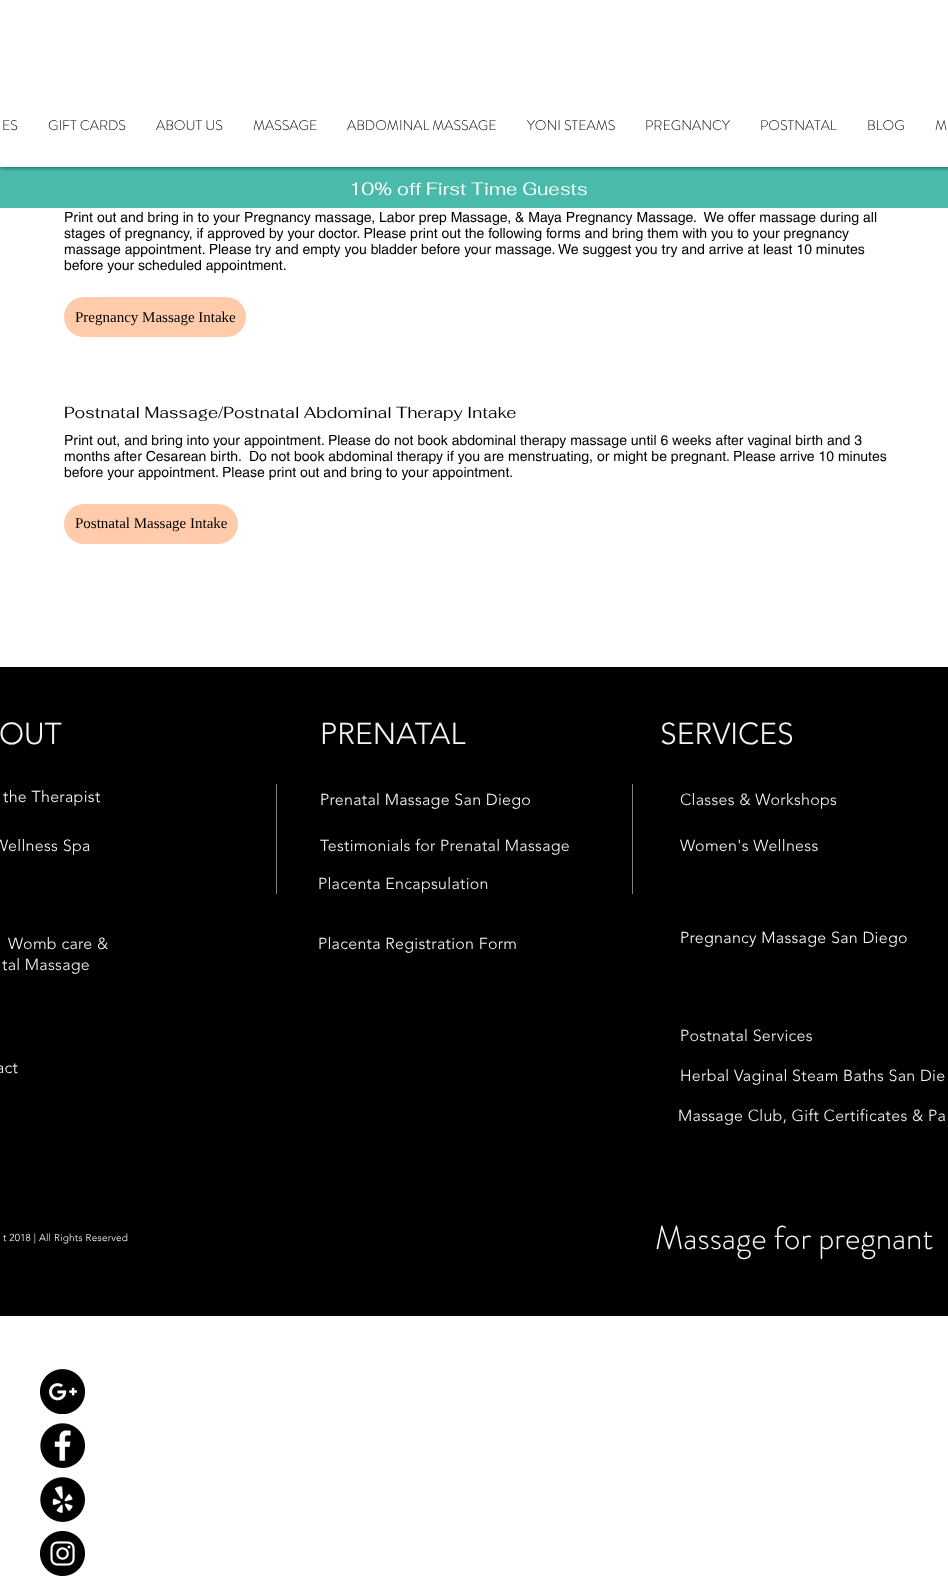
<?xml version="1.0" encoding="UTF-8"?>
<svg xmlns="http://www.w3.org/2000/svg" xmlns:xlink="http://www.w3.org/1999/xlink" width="948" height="1596">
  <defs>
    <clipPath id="clip1"><rect x="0" y="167" width="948" height="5" /></clipPath>
  </defs>
  <rect width="100%" height="100%" fill="#ffffff" />
  <rect y="167" width="948" height="41" fill="#4abaab" />
  <g clip-path="url(#clip1)">
    <rect width="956" height="167" fill="#000000" fill-opacity="0.7" filter="blur(2.5px)" />
  </g>
  <rect x="64" y="297" width="182" height="40" rx="20" fill="#ffcbaa" />
  <rect x="64" y="504" width="174" height="40" rx="20" fill="#ffcbaa" />
  <rect y="667" width="948" height="649" fill="#000000" />
  <rect x="276" y="784" width="1" height="110" fill="#808080" />
  <rect x="632" y="784" width="1" height="110" fill="#808080" />
  <image x="40" y="1369" width="45" height="45" xlink:href="image1.png" />
  <image x="40" y="1423" width="45" height="45" xlink:href="image2.png" />
  <image x="40" y="1477" width="45" height="45" xlink:href="image3.png" />
  <image x="40" y="1531" width="45" height="45" xlink:href="image4.png" />
  <text x="2" y="130" style="font-family: 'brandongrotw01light'; font-size: 14px; font-weight: 300; fill: #000000">ES</text>
  <text x="48" y="130" style="font-family: 'brandongrotw01light'; font-size: 14px; font-weight: 300; fill: #000000">GIFT CARDS</text>
  <text x="156" y="130" style="font-family: 'brandongrotw01light'; font-size: 14px; font-weight: 300; fill: #000000">ABOUT US</text>
  <text x="253" y="130" style="font-family: 'brandongrotw01light'; font-size: 14px; font-weight: 300; fill: #000000">MASSAGE</text>
  <text x="347" y="130" style="font-family: 'brandongrotw01light'; font-size: 14px; font-weight: 300; fill: #000000">ABDOMINAL MASSAGE</text>
  <text x="527" y="130" style="font-family: 'brandongrotw01light'; font-size: 14px; font-weight: 300; fill: #000000">YONI STEAMS</text>
  <text x="645" y="130" style="font-family: 'brandongrotw01light'; font-size: 14px; font-weight: 300; fill: #000000">PREGNANCY</text>
  <text x="760" y="130" style="font-family: 'brandongrotw01light'; font-size: 14px; font-weight: 300; fill: #000000">POSTNATAL</text>
  <text x="867" y="130" style="font-family: 'brandongrotw01light'; font-size: 14px; font-weight: 300; fill: #000000">BLOG</text>
  <text x="935" y="130" style="font-family: 'brandongrotw01light'; font-size: 14px; font-weight: 300; fill: #000000">M</text>
  <text x="349" y="195" style="font-family: Fahkwang; font-size: 18px; fill: #ffffff">10% off First Time Guests</text>
  <text x="64" y="222" style="font-family: helvetica; font-size: 14px; fill: #000000" xml:space="preserve">Print out and bring in to your Pregnancy massage, Labor prep Massage, &amp; Maya Pregnancy Massage.  We offer massage during all</text>
  <text x="64" y="238" style="font-family: helvetica; font-size: 14px; fill: #000000">stages of pregnancy, if approved by your doctor. Please print out the following forms and bring them with you to your pregnancy</text>
  <text x="64" y="254" style="font-family: helvetica; font-size: 14px; fill: #000000">massage appointment. Please try and empty you bladder before your massage. We suggest you try and arrive at least 10 minutes</text>
  <text x="64" y="270" style="font-family: helvetica; font-size: 14px; fill: #000000">before your scheduled appointment.</text>
  <text x="75" y="322" style="font-family: Liberation Serif; font-size: 15px; fill: #000000">Pregnancy Massage Intake</text>
  <text x="64" y="418" style="font-family: Fahkwang; font-size: 16px; fill: #000000">Postnatal Massage/Postnatal Abdominal Therapy Intake</text>
  <text x="64" y="445" style="font-family: helvetica; font-size: 14px; fill: #000000">Print out, and bring into your appointment. Please do not book abdominal therapy massage until 6 weeks after vaginal birth and 3</text>
  <text x="64" y="461" style="font-family: helvetica; font-size: 14px; fill: #000000" xml:space="preserve">months after Cesarean birth.  Do not book abdominal therapy if you are menstruating, or might be pregnant. Please arrive 10 minutes</text>
  <text x="64" y="477" style="font-family: helvetica; font-size: 14px; fill: #000000">before your appointment. Please print out and bring to your appointment.</text>
  <text x="75" y="528" style="font-family: Liberation Serif; font-size: 15px; fill: #000000">Postnatal Massage Intake</text>
  <text x="-1" y="744" style="font-family: 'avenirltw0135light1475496'; font-size: 30px; font-weight: 300; fill: #f4f4f4">OUT</text>
  <text x="320" y="744" style="font-family: 'avenirltw0135light1475496'; font-size: 30px; font-weight: 300; fill: #f4f4f4">PRENATAL</text>
  <text x="660" y="744" style="font-family: 'avenirltw0135light1475496'; font-size: 30px; font-weight: 300; fill: #f4f4f4">SERVICES</text>
  <text x="3" y="802" style="font-family: 'avenirltw0135light1475496'; font-size: 16px; font-weight: 300; letter-spacing: 0.3px; fill: #ffffff">the Therapist</text>
  <text x="320" y="805" style="font-family: 'avenirltw0135light1475496'; font-size: 16px; font-weight: 300; letter-spacing: 0.3px; fill: #ffffff">Prenatal Massage San Diego</text>
  <text x="680" y="805" style="font-family: 'avenirltw0135light1475496'; font-size: 16px; font-weight: 300; letter-spacing: 0.3px; fill: #fff8f1">Classes &amp; Workshops</text>
  <text x="-7" y="851" style="font-family: 'avenirltw0135light1475496'; font-size: 16px; font-weight: 300; letter-spacing: 0.3px; fill: #fff8f1">Wellness Spa</text>
  <text x="320" y="851" style="font-family: 'avenirltw0135light1475496'; font-size: 16px; font-weight: 300; letter-spacing: 0.3px; fill: #fff8f1">Testimonials for Prenatal Massage</text>
  <text x="680" y="851" style="font-family: 'avenirltw0135light1475496'; font-size: 16px; font-weight: 300; letter-spacing: 0.3px; fill: #fff8f1">Women's Wellness</text>
  <text x="318" y="889" style="font-family: 'avenirltw0135light1475496'; font-size: 16px; font-weight: 300; letter-spacing: 0.3px; fill: #fff8f1">Placenta Encapsulation</text>
  <text x="8" y="949" style="font-family: 'avenirltw0135light1475496'; font-size: 16px; font-weight: 300; letter-spacing: 0.3px; fill: #fff8f1">Womb care &amp;</text>
  <text x="2" y="970" style="font-family: 'avenirltw0135light1475496'; font-size: 16px; font-weight: 300; letter-spacing: 0.3px; fill: #fff8f1">tal Massage</text>
  <text x="318" y="949" style="font-family: 'avenirltw0135light1475496'; font-size: 16px; font-weight: 300; letter-spacing: 0.3px; fill: #fff8f1">Placenta Registration Form</text>
  <text x="680" y="943" style="font-family: 'avenirltw0135light1475496'; font-size: 16px; font-weight: 300; letter-spacing: 0.3px; fill: #ffffff">Pregnancy Massage San Diego</text>
  <text x="680" y="1041" style="font-family: 'avenirltw0135light1475496'; font-size: 16px; font-weight: 300; letter-spacing: 0.3px; fill: #fff8f1">Postnatal Services</text>
  <text x="-4" y="1073" style="font-family: 'avenirltw0135light1475496'; font-size: 16px; font-weight: 300; letter-spacing: 0.3px; fill: #fff8f1">act</text>
  <text x="680" y="1081" style="font-family: 'avenirltw0135light1475496'; font-size: 16px; font-weight: 300; letter-spacing: 0.3px; fill: #fff8f1">Herbal Vaginal Steam Baths San Die</text>
  <text x="678" y="1121" style="font-family: 'avenirltw0135light1475496'; font-size: 16px; font-weight: 300; letter-spacing: 0.3px; fill: #fff8f1">Massage Club, Gift Certificates &amp; Pa</text>
  <text x="3" y="1241" style="font-family: 'avenirltw0135light1475496'; font-size: 10px; font-weight: 300; letter-spacing: 0.2px; fill: #fff8f1">t 2018 | All Rights Reserved</text>
  <text x="655" y="1249" style="font-family: 'brandongrotw01light'; font-size: 33px; font-weight: 300; fill: #fff8f1">Massage for pregnant</text>
</svg>
